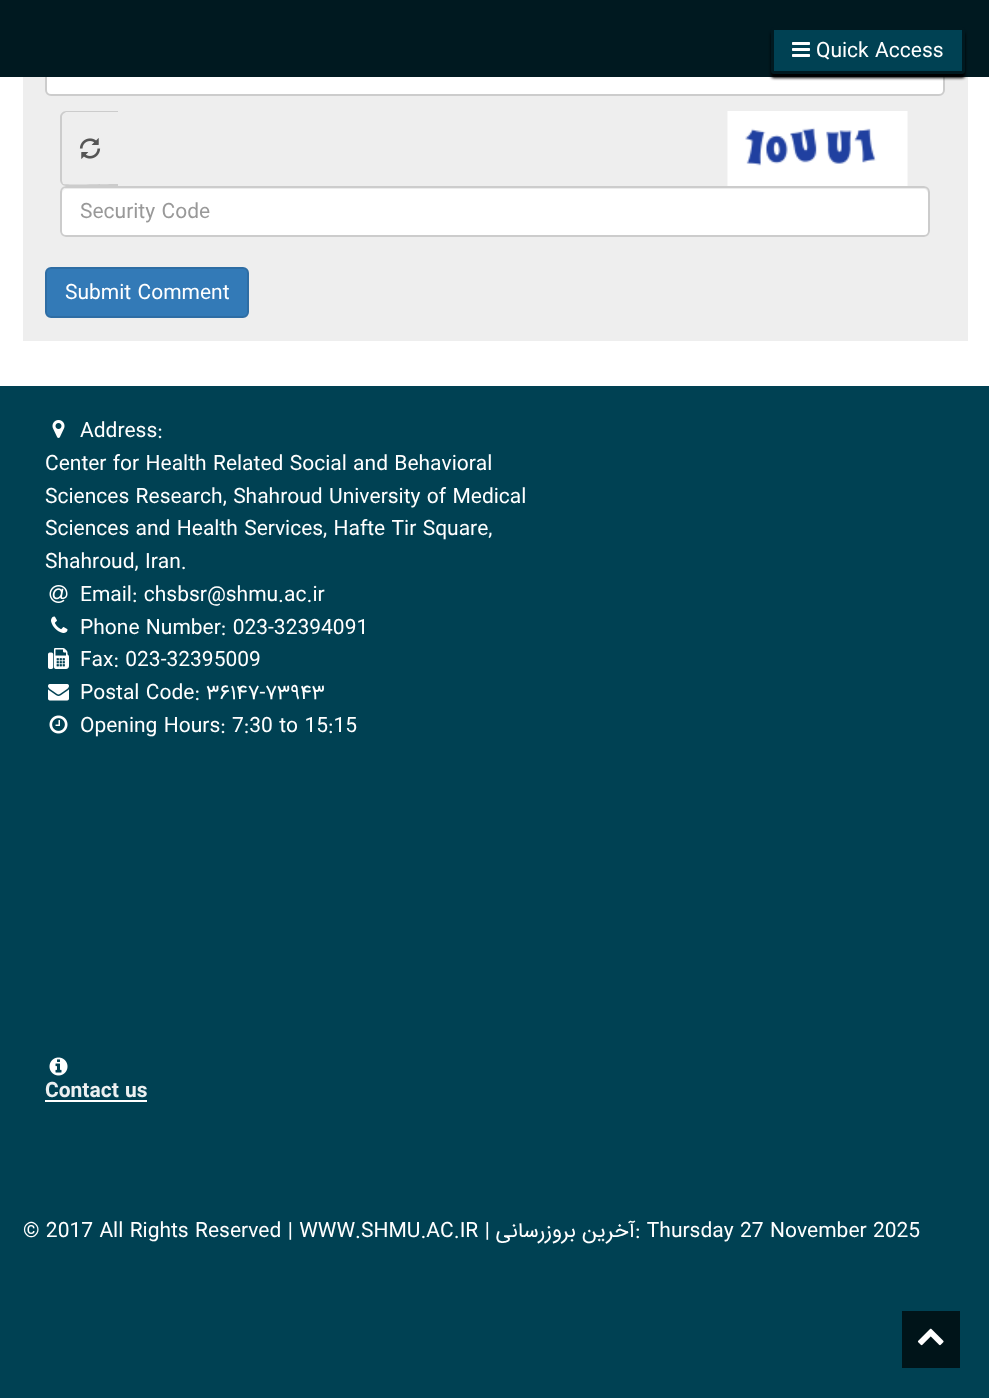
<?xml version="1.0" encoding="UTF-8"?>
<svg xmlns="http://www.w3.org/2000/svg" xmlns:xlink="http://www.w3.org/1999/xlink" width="989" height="1398">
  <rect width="100%" height="100%" fill="#ffffff" />
  <rect x="23" y="77" width="945" height="264" fill="#eeeeee" />
  <rect x="46" y="-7" width="898" height="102" rx="5" fill="#ffffff" stroke="#cccccc" stroke-width="2" />
  <rect width="989" height="77" fill="#001920" />
  <rect x="771" y="32" width="194" height="46" rx="3" fill="#000000" filter="blur(1.5px)" />
  <rect x="772.5" y="28.5" width="191" height="44" rx="1.5" fill="#004153" stroke="#001920" stroke-width="3" />
  <image x="792" y="42" width="18" height="15" xlink:href="image1.png" />
  <path d="M 66 111 h 52 v 75 h -52 c -3 0 -6 -3 -6 -6 v -63 c 0 -3 3 -6 6 -6 z m 0 1 h 52 v 72 c -6 0 -52 1 -55 0 l -1 -3 v -65 l 1 -2 z" fill="#cccccc" fill-rule="evenodd" />
  <image x="79" y="138" width="22" height="21" xlink:href="image2.png" />
  <image x="727" y="111" width="181" height="75" xlink:href="image3.png" />
  <rect x="60" y="186" width="870" height="51" rx="6" fill="#ffffff" />
  <path d="M 66 189 h 858 c 2 0 4 2 4 5 v 38 l -1 3 c 1 -1 2 -3 2 -4 v -38 c 0 -3 -2 -5 -5 -5 h -857 c -3 0 -5 2 -5 5 v 1 c 0 -3 2 -5 4 -5 z" fill="#ececec" />
  <rect x="61" y="187" width="868" height="49" rx="5" fill="none" stroke="#cccccc" stroke-width="2" />
  <rect x="46" y="268" width="202" height="49" rx="5" fill="#337ab7" stroke="#2e6da4" stroke-width="2" />
  <rect y="386" width="989" height="1012" fill="#004153" />
  <image x="52" y="420" width="13" height="18" xlink:href="image4.png" />
  <image x="49" y="585" width="19" height="18" xlink:href="image5.png" />
  <image x="51" y="616" width="17" height="17" xlink:href="image6.png" />
  <image x="48" y="648" width="21" height="21" xlink:href="image7.png" />
  <image x="48" y="684" width="21" height="17" xlink:href="image8.png" />
  <image x="49" y="715" width="19" height="19" xlink:href="image9.png" />
  <image x="49" y="1057" width="19" height="19" xlink:href="image10.png" />
  <rect x="45" y="1100" width="102" height="2" fill="#ffffff" />
  <rect x="902" y="1311" width="58" height="57" fill="#001419" />
  <image x="917" y="1328" width="27" height="18" xlink:href="image11.png" />
  <text x="816" y="57" style="font-family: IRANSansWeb; font-size: 21px; fill: #ffffff">Quick Access</text>
  <text x="80" y="218" style="font-family: IRANSansWeb; font-size: 21px; fill: #999999">Security Code</text>
  <text x="65" y="299" style="font-family: IRANSansWeb; font-size: 21px; fill: #ffffff">Submit Comment</text>
  <text x="80" y="437" style="font-family: IRANSansWeb; font-size: 21px; fill: #ffffff">Address:</text>
  <text x="45" y="470" style="font-family: IRANSansWeb; font-size: 21px; fill: #ffffff">Center for Health Related Social and Behavioral</text>
  <text x="45" y="503" style="font-family: IRANSansWeb; font-size: 21px; fill: #ffffff">Sciences Research, Shahroud University of Medical</text>
  <text x="45" y="535" style="font-family: IRANSansWeb; font-size: 21px; fill: #ffffff">Sciences and Health Services, Hafte Tir Square,</text>
  <text x="45" y="568" style="font-family: IRANSansWeb; font-size: 21px; fill: #ffffff">Shahroud, Iran.</text>
  <text x="80" y="601" style="font-family: IRANSansWeb; font-size: 21px; fill: #ffffff">Email: chsbsr@shmu.ac.ir</text>
  <text x="80" y="634" style="font-family: IRANSansWeb; font-size: 21px; fill: #ffffff">Phone Number: 023-32394091</text>
  <text x="80" y="666" style="font-family: IRANSansWeb; font-size: 21px; fill: #ffffff">Fax: 023-32395009</text>
  <text x="80" y="699" style="font-family: IRANSansWeb; font-size: 21px; fill: #ffffff">Postal Code: ۳۶۱۴۷-۷۳۹۴۳</text>
  <text x="80" y="732" style="font-family: IRANSansWeb; font-size: 21px; fill: #ffffff">Opening Hours: 7:30 to 15:15</text>
  <text x="45" y="1097" style="font-family: IRANSansWeb; font-size: 21px; font-weight: bold; fill: #ecf0f1">Contact us</text>
  <text x="23" y="1237" style="font-family: IRANSansWeb; font-size: 21px; fill: #ffffff">© 2017 All Rights Reserved | WWW.SHMU.AC.IR |</text>
  <text x="635" y="1237" style="font-family: IRANSansWeb; font-size: 21px; direction: rtl; fill: #ffffff">آخرین بروزرسانی</text>
  <text x="635" y="1237" style="font-family: IRANSansWeb; font-size: 21px; fill: #ffffff">: Thursday 27 November 2025</text>
</svg>
